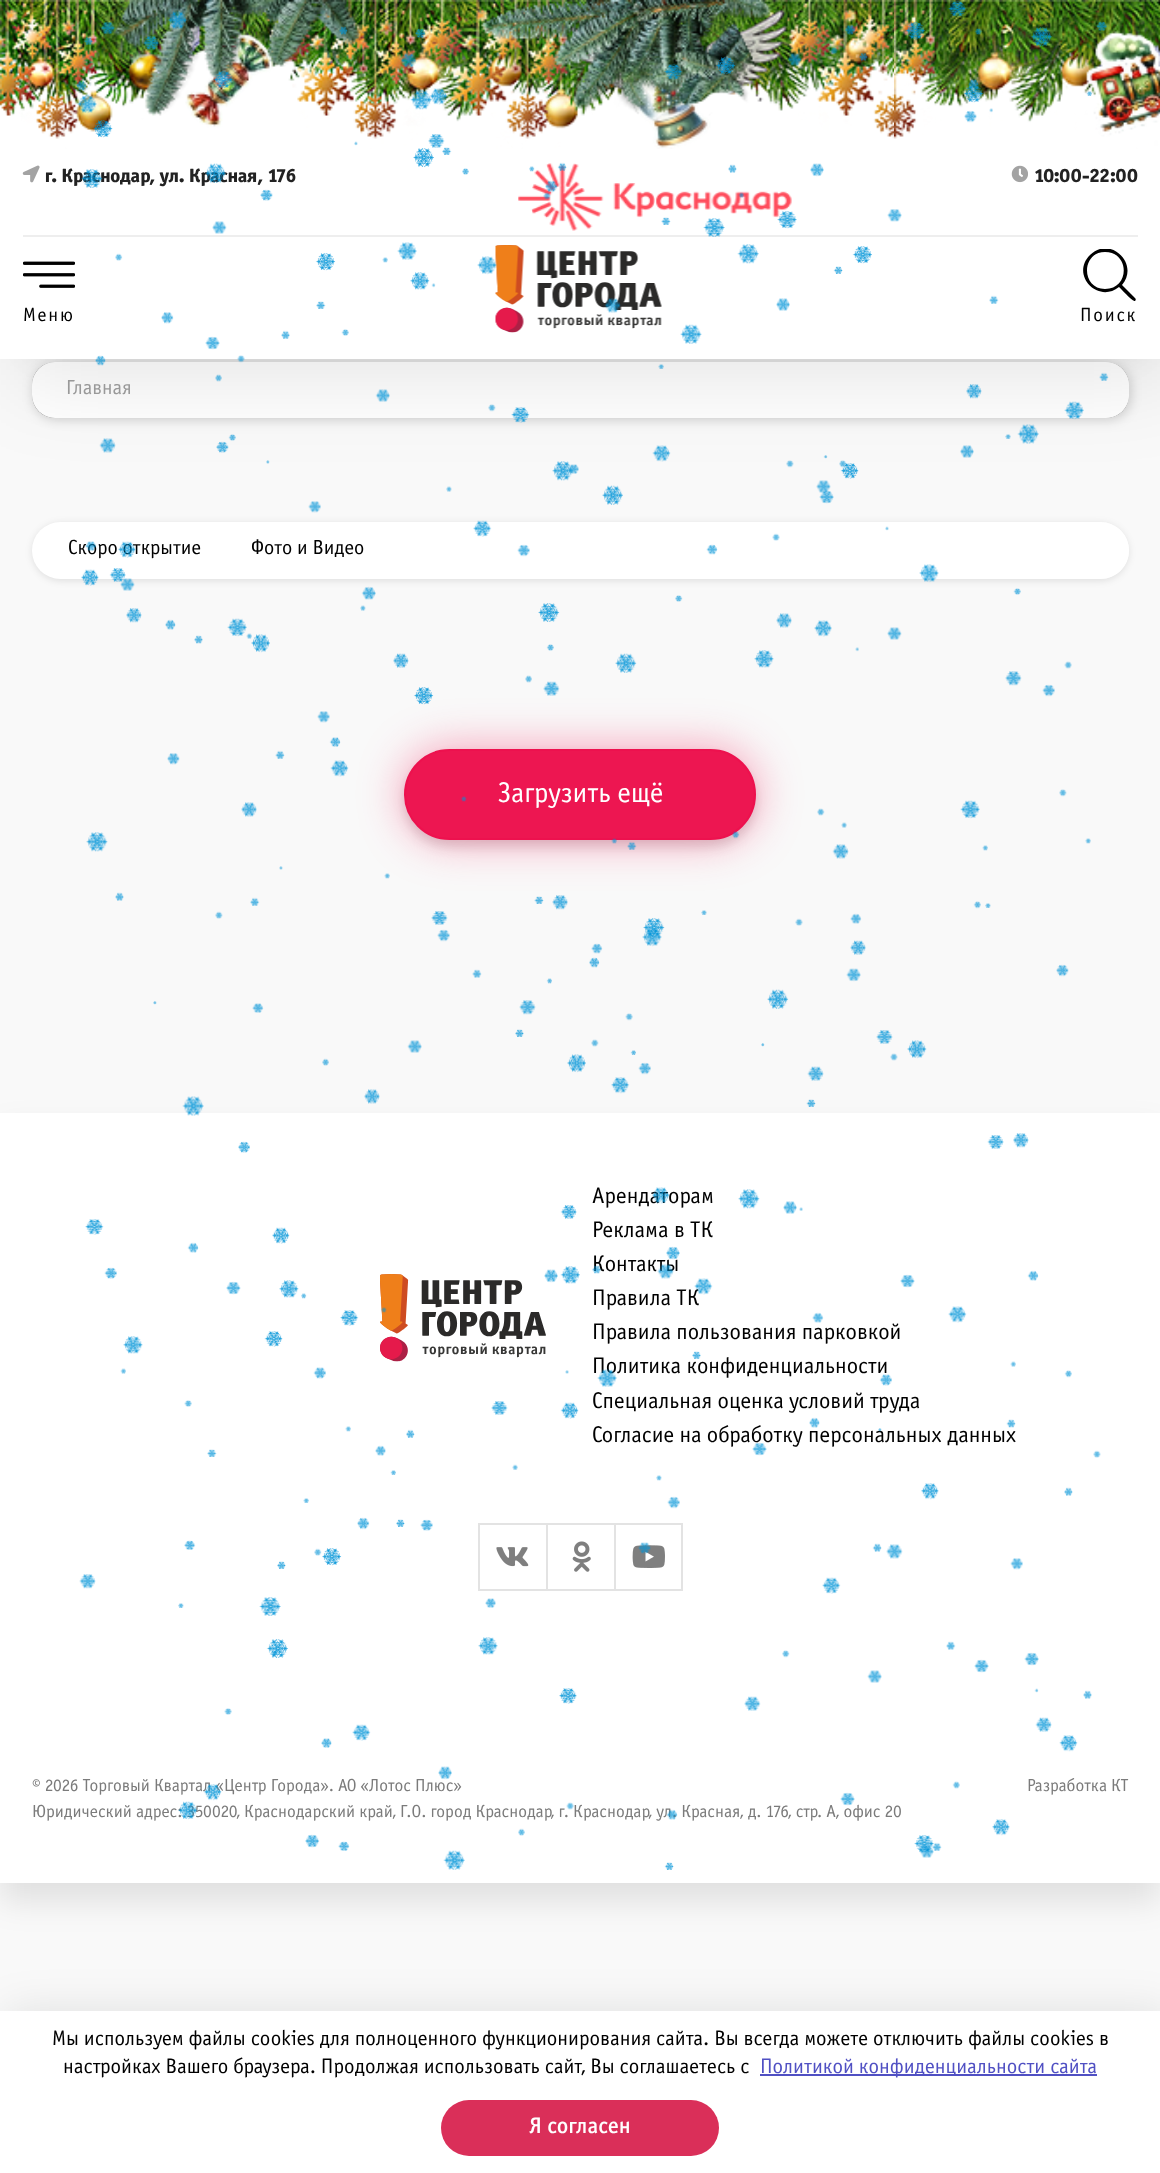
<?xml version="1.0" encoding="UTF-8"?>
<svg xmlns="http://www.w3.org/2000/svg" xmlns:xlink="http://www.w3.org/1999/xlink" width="1160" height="2173">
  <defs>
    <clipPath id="clip1"><rect x="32" y="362" width="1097" height="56" rx="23" /></clipPath>
    <linearGradient id="g1" gradientUnits="userSpaceOnUse" x1="1050" y1="402" x2="1129" y2="402"><stop offset="0" stop-color="#ffffff" stop-opacity="0" /><stop offset="1" stop-color="#ffffff" /></linearGradient>
    <clipPath id="clip2"><rect x="1083" y="249" width="53" height="52" /></clipPath>
    <linearGradient id="g2" gradientUnits="userSpaceOnUse" x1="1050" y1="550" x2="1129" y2="550"><stop offset="0" stop-color="#ffffff" stop-opacity="0" /><stop offset="1" stop-color="#ffffff" /></linearGradient>
  </defs>
  <rect width="100%" height="100%" fill="#f9f9f9" />
  <rect x="37" y="184" width="1097" height="163" rx="23" fill="#000000" fill-opacity="0.15" filter="blur(21px)" />
  <rect x="33" y="364" width="1098" height="56" rx="23" fill="#000000" fill-opacity="0.16" filter="blur(5.5px)" />
  <g clip-path="url(#clip1)">
    <rect x="32" y="364" width="1097" height="56" fill="#000000" filter="blur(3.5px)" />
  </g>
  <rect x="32" y="362" width="1097" height="56" rx="23" fill="#ffffff" />
  <path d="M 55 362 h 87 v 56 h -87 c -12.5 0 -23 -10.5 -23 -23 v -10 c 0 -12.5 10.5 -23 23 -23 z" fill="#ffffff" fill-opacity="0.5" />
  <path d="M 1050 362 h 56 c 12.5 0 23 10.5 23 23 v 10 c 0 12.5 -10.5 23 -23 23 h -56 z" fill="url(#g1)" />
  <rect x="16" y="21" width="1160" height="359" fill="#000000" fill-opacity="0.1" filter="blur(43px)" />
  <rect width="1160" height="359" fill="#ffffff" />
  <image x="0" y="0" width="1160" height="149" xlink:href="image39.png" />
  <image x="948" y="1" width="19" height="16" xlink:href="image1.png" />
  <image x="100" y="21" width="15" height="14" xlink:href="image2.png" />
  <image x="167" y="11" width="20" height="18" xlink:href="image3.png" />
  <image x="339" y="26" width="9" height="9" xlink:href="image4.png" />
  <image x="414" y="28" width="12" height="10" xlink:href="image5.png" />
  <image x="844" y="24" width="12" height="11" xlink:href="image6.png" />
  <image x="905" y="22" width="20" height="18" xlink:href="image7.png" />
  <image x="974" y="28" width="8" height="7" xlink:href="image8.png" />
  <image x="1031" y="27" width="21" height="20" xlink:href="image9.png" />
  <image x="1096" y="21" width="12" height="10" xlink:href="image10.png" />
  <image x="84" y="37" width="9" height="8" xlink:href="image11.png" />
  <image x="143" y="36" width="17" height="14" xlink:href="image12.png" />
  <image x="830" y="47" width="8" height="8" xlink:href="image13.png" />
  <image x="76" y="80" width="11" height="11" xlink:href="image14.png" />
  <image x="213" y="71" width="20" height="18" xlink:href="image15.png" />
  <image x="400" y="53" width="17" height="15" xlink:href="image16.png" />
  <image x="664" y="64" width="19" height="16" xlink:href="image17.png" />
  <image x="716" y="57" width="20" height="18" xlink:href="image18.png" />
  <image x="787" y="53" width="15" height="13" xlink:href="image19.png" />
  <image x="859" y="52" width="9" height="9" xlink:href="image20.png" />
  <image x="968" y="79" width="11" height="10" xlink:href="image21.png" />
  <image x="410" y="90" width="22" height="20" xlink:href="image22.png" />
  <image x="429" y="88" width="19" height="17" xlink:href="image23.png" />
  <image x="963" y="85" width="20" height="18" xlink:href="image24.png" />
  <image x="1086" y="91" width="6" height="5" xlink:href="image25.png" />
  <image x="77" y="95" width="20" height="19" xlink:href="image26.png" />
  <image x="964" y="110" width="13" height="13" xlink:href="image27.png" />
  <image x="989" y="108" width="4" height="5" xlink:href="image28.png" />
  <image x="93" y="120" width="20" height="18" xlink:href="image29.png" />
  <image x="354" y="141" width="4" height="5" xlink:href="image30.png" />
  <image x="442" y="147" width="10" height="8" xlink:href="image34.png" />
  <image x="428" y="134" width="17" height="14" xlink:href="image31.png" />
  <image x="413" y="148" width="21" height="20" xlink:href="image33.png" />
  <image x="518" y="163" width="274" height="68" xlink:href="image41.png" />
  <image x="529" y="166" width="6" height="6" xlink:href="image35.png" />
  <image x="557" y="162" width="10" height="9" xlink:href="image36.png" />
  <image x="728" y="164" width="9" height="9" xlink:href="image37.png" />
  <image x="810" y="163" width="14" height="14" xlink:href="image38.png" />
  <rect x="23" y="235" width="1115" height="2" fill="#eeeeee" />
  <image x="22" y="165" width="18" height="18" xlink:href="image40.png" />
  <image x="1011" y="165" width="17" height="18" xlink:href="image42.png" />
  <image x="23" y="261" width="52" height="27" xlink:href="image43.png" />
  <image x="495" y="245" width="167" height="88" xlink:href="image44.png" />
  <g clip-path="url(#clip2)">
    <path d="M 1135 298 l -13 -13 c 18 -21 -12 -50 -32 -30 c -20 20 8 49 29 32 c 2 2 14 15 16 14 c 1 -1 1 -2 0 -3 z m -30 -9 c -24 0 -24 -37 0 -37 c 25 0 25 37 0 37 z" fill="#000000" />
  </g>
  <image x="462" y="168" width="7" height="7" xlink:href="image46.png" />
  <image x="543" y="192" width="8" height="8" xlink:href="image49.png" />
  <image x="545" y="180" width="13" height="13" xlink:href="image47.png" />
  <image x="260" y="189" width="13" height="12" xlink:href="image48.png" />
  <image x="738" y="192" width="6" height="6" xlink:href="image50.png" />
  <image x="212" y="221" width="15" height="13" xlink:href="image51.png" />
  <image x="661" y="217" width="10" height="8" xlink:href="image52.png" />
  <image x="703" y="218" width="22" height="19" xlink:href="image53.png" />
  <image x="777" y="211" width="20" height="18" xlink:href="image54.png" />
  <image x="887" y="209" width="15" height="13" xlink:href="image55.png" />
  <image x="115" y="253" width="8" height="8" xlink:href="image56.png" />
  <image x="315" y="253" width="21" height="18" xlink:href="image57.png" />
  <image x="382" y="257" width="6" height="6" xlink:href="image58.png" />
  <image x="397" y="242" width="20" height="18" xlink:href="image59.png" />
  <image x="477" y="256" width="20" height="19" xlink:href="image60.png" />
  <image x="737" y="244" width="22" height="20" xlink:href="image61.png" />
  <image x="852" y="246" width="20" height="18" xlink:href="image62.png" />
  <image x="833" y="266" width="10" height="8" xlink:href="image63.png" />
  <image x="410" y="272" width="20" height="18" xlink:href="image64.png" />
  <image x="431" y="283" width="5" height="5" xlink:href="image65.png" />
  <image x="316" y="301" width="10" height="8" xlink:href="image66.png" />
  <image x="604" y="298" width="17" height="15" xlink:href="image67.png" />
  <image x="776" y="298" width="14" height="13" xlink:href="image68.png" />
  <image x="989" y="295" width="10" height="9" xlink:href="image69.png" />
  <image x="161" y="312" width="13" height="12" xlink:href="image70.png" />
  <image x="281" y="330" width="9" height="9" xlink:href="image71.png" />
  <image x="341" y="329" width="8" height="7" xlink:href="image72.png" />
  <image x="680" y="324" width="22" height="20" xlink:href="image73.png" />
  <image x="205" y="336" width="15" height="14" xlink:href="image74.png" />
  <image x="95" y="355" width="11" height="11" xlink:href="image75.png" />
  <image x="237" y="355" width="8" height="8" xlink:href="image76.png" />
  <image x="658" y="364" width="6" height="5" xlink:href="image77.png" />
  <image x="215" y="374" width="7" height="8" xlink:href="image78.png" />
  <image x="1099" y="372" width="10" height="9" xlink:href="image79.png" />
  <rect x="32" y="523" width="1097" height="58" rx="29" fill="#000000" fill-opacity="0.1" filter="blur(3.5px)" />
  <rect x="32" y="522" width="1097" height="57" rx="28.5" fill="#ffffff" />
  <path d="M 1050 522 h 50.5 c 15.5 0 28.5 13 28.5 28.5 c 0 15.5 -13 28.5 -28.5 28.5 h -50.5 z" fill="url(#g2)" />
  <rect x="404" y="756" width="352" height="91" rx="45.5" fill="#000000" fill-opacity="0.13" filter="blur(5.5px)" />
  <rect x="404" y="749" width="352" height="91" rx="45.5" fill="#f81a57" fill-opacity="0.42" filter="blur(23px)" />
  <rect x="405" y="750" width="350" height="89" rx="44.5" fill="#ed1651" stroke="#ed114e" stroke-width="2" />
  <image x="966" y="384" width="16" height="15" xlink:href="image80.png" />
  <image x="375" y="389" width="15" height="13" xlink:href="image81.png" />
  <image x="488" y="404" width="8" height="8" xlink:href="image82.png" />
  <image x="511" y="407" width="19" height="16" xlink:href="image83.png" />
  <image x="1064" y="401" width="20" height="19" xlink:href="image84.png" />
  <image x="228" y="434" width="8" height="7" xlink:href="image85.png" />
  <image x="1005" y="434" width="6" height="5" xlink:href="image86.png" />
  <image x="1017" y="424" width="22" height="20" xlink:href="image87.png" />
  <image x="99" y="438" width="17" height="15" xlink:href="image88.png" />
  <image x="216" y="441" width="13" height="12" xlink:href="image89.png" />
  <image x="652" y="445" width="19" height="17" xlink:href="image90.png" />
  <image x="823" y="455" width="5" height="4" xlink:href="image91.png" />
  <image x="960" y="445" width="14" height="13" xlink:href="image92.png" />
  <image x="266" y="460" width="4" height="4" xlink:href="image93.png" />
  <image x="552" y="461" width="22" height="20" xlink:href="image94.png" />
  <image x="786" y="460" width="8" height="8" xlink:href="image95.png" />
  <image x="840" y="463" width="19" height="16" xlink:href="image98.png" />
  <image x="839" y="460" width="8" height="8" xlink:href="image96.png" />
  <image x="568" y="464" width="11" height="10" xlink:href="image97.png" />
  <image x="446" y="486" width="6" height="6" xlink:href="image99.png" />
  <image x="602" y="485" width="21" height="20" xlink:href="image100.png" />
  <image x="816" y="480" width="15" height="13" xlink:href="image101.png" />
  <image x="819" y="491" width="15" height="13" xlink:href="image102.png" />
  <image x="308" y="501" width="13" height="12" xlink:href="image103.png" />
  <image x="473" y="520" width="19" height="17" xlink:href="image104.png" />
  <image x="885" y="526" width="4" height="5" xlink:href="image105.png" />
  <image x="772" y="533" width="8" height="8" xlink:href="image106.png" />
  <image x="517" y="544" width="13" height="13" xlink:href="image109.png" />
  <image x="706" y="544" width="12" height="11" xlink:href="image110.png" />
  <image x="81" y="569" width="18" height="17" xlink:href="image111.png" />
  <image x="120" y="578" width="15" height="13" xlink:href="image113.png" />
  <image x="109" y="568" width="17" height="14" xlink:href="image112.png" />
  <image x="919" y="564" width="20" height="19" xlink:href="image114.png" />
  <image x="361" y="586" width="15" height="14" xlink:href="image115.png" />
  <image x="1013" y="588" width="8" height="7" xlink:href="image116.png" />
  <image x="675" y="595" width="8" height="7" xlink:href="image117.png" />
  <image x="126" y="608" width="16" height="15" xlink:href="image118.png" />
  <image x="165" y="619" width="11" height="11" xlink:href="image119.png" />
  <image x="194" y="635" width="9" height="9" xlink:href="image120.png" />
  <image x="246" y="633" width="6" height="6" xlink:href="image122.png" />
  <image x="227" y="618" width="20" height="19" xlink:href="image121.png" />
  <image x="251" y="634" width="19" height="19" xlink:href="image123.png" />
  <image x="360" y="605" width="6" height="6" xlink:href="image124.png" />
  <image x="538" y="603" width="22" height="19" xlink:href="image125.png" />
  <image x="776" y="613" width="16" height="15" xlink:href="image126.png" />
  <image x="814" y="620" width="18" height="17" xlink:href="image127.png" />
  <image x="887" y="627" width="15" height="13" xlink:href="image128.png" />
  <image x="546" y="644" width="8" height="7" xlink:href="image129.png" />
  <image x="855" y="647" width="4" height="5" xlink:href="image130.png" />
  <image x="393" y="653" width="16" height="15" xlink:href="image131.png" />
  <image x="615" y="653" width="22" height="20" xlink:href="image132.png" />
  <image x="754" y="650" width="20" height="18" xlink:href="image133.png" />
  <image x="1064" y="661" width="8" height="8" xlink:href="image134.png" />
  <image x="525" y="675" width="7" height="8" xlink:href="image135.png" />
  <image x="1005" y="671" width="17" height="15" xlink:href="image136.png" />
  <image x="413" y="687" width="21" height="18" xlink:href="image137.png" />
  <image x="543" y="681" width="17" height="15" xlink:href="image138.png" />
  <image x="1042" y="684" width="13" height="13" xlink:href="image139.png" />
  <image x="317" y="711" width="13" height="12" xlink:href="image140.png" />
  <image x="329" y="737" width="12" height="10" xlink:href="image141.png" />
  <image x="167" y="753" width="13" height="12" xlink:href="image142.png" />
  <image x="275" y="750" width="10" height="9" xlink:href="image143.png" />
  <image x="330" y="760" width="19" height="17" xlink:href="image144.png" />
  <image x="1059" y="789" width="8" height="8" xlink:href="image145.png" />
  <image x="461" y="796" width="6" height="6" xlink:href="image146.png" />
  <image x="241" y="802" width="16" height="15" xlink:href="image147.png" />
  <image x="817" y="808" width="8" height="8" xlink:href="image148.png" />
  <image x="960" y="800" width="20" height="19" xlink:href="image149.png" />
  <image x="841" y="822" width="6" height="6" xlink:href="image150.png" />
  <image x="86" y="832" width="22" height="20" xlink:href="image151.png" />
  <image x="611" y="838" width="6" height="6" xlink:href="image152.png" />
  <image x="627" y="841" width="10" height="9" xlink:href="image153.png" />
  <image x="732" y="831" width="8" height="8" xlink:href="image154.png" />
  <image x="832" y="844" width="17" height="15" xlink:href="image155.png" />
  <image x="982" y="845" width="6" height="6" xlink:href="image156.png" />
  <image x="1085" y="838" width="6" height="6" xlink:href="image157.png" />
  <image x="279" y="866" width="4" height="4" xlink:href="image158.png" />
  <image x="384" y="873" width="6" height="6" xlink:href="image159.png" />
  <image x="115" y="892" width="9" height="9" xlink:href="image160.png" />
  <image x="250" y="897" width="10" height="9" xlink:href="image161.png" />
  <image x="534" y="896" width="10" height="8" xlink:href="image162.png" />
  <image x="552" y="895" width="16" height="15" xlink:href="image163.png" />
  <image x="973" y="901" width="8" height="8" xlink:href="image164.png" />
  <image x="985" y="903" width="6" height="5" xlink:href="image165.png" />
  <image x="215" y="911" width="8" height="8" xlink:href="image166.png" />
  <image x="431" y="911" width="17" height="14" xlink:href="image167.png" />
  <image x="643" y="918" width="22" height="19" xlink:href="image168.png" />
  <image x="701" y="910" width="6" height="5" xlink:href="image169.png" />
  <image x="795" y="918" width="8" height="8" xlink:href="image170.png" />
  <image x="850" y="913" width="12" height="11" xlink:href="image171.png" />
  <image x="437" y="929" width="13" height="13" xlink:href="image172.png" />
  <image x="642" y="928" width="20" height="19" xlink:href="image173.png" />
  <image x="591" y="943" width="12" height="11" xlink:href="image174.png" />
  <image x="850" y="940" width="16" height="15" xlink:href="image175.png" />
  <image x="589" y="957" width="11" height="11" xlink:href="image176.png" />
  <image x="472" y="969" width="10" height="9" xlink:href="image177.png" />
  <image x="846" y="968" width="15" height="14" xlink:href="image178.png" />
  <image x="1056" y="964" width="13" height="13" xlink:href="image179.png" />
  <image x="546" y="978" width="6" height="6" xlink:href="image180.png" />
  <image x="153" y="1001" width="4" height="4" xlink:href="image181.png" />
  <image x="252" y="1003" width="12" height="10" xlink:href="image182.png" />
  <image x="519" y="1000" width="17" height="15" xlink:href="image183.png" />
  <image x="767" y="989" width="22" height="20" xlink:href="image184.png" />
  <image x="625" y="1013" width="8" height="8" xlink:href="image185.png" />
  <image x="407" y="1040" width="15" height="13" xlink:href="image186.png" />
  <image x="515" y="1029" width="9" height="8" xlink:href="image187.png" />
  <image x="591" y="1039" width="8" height="8" xlink:href="image188.png" />
  <image x="761" y="1043" width="4" height="4" xlink:href="image189.png" />
  <image x="876" y="1030" width="17" height="14" xlink:href="image190.png" />
  <image x="907" y="1040" width="20" height="19" xlink:href="image191.png" />
  <image x="630" y="1050" width="6" height="5" xlink:href="image192.png" />
  <image x="322" y="1058" width="7" height="8" xlink:href="image193.png" />
  <image x="567" y="1054" width="19" height="19" xlink:href="image194.png" />
  <image x="638" y="1062" width="13" height="13" xlink:href="image195.png" />
  <image x="807" y="1066" width="17" height="15" xlink:href="image196.png" />
  <image x="890" y="1053" width="8" height="8" xlink:href="image197.png" />
  <rect y="1131" width="1160" height="770" fill="#000000" fill-opacity="0.1" filter="blur(16px)" />
  <image x="611" y="1077" width="19" height="17" xlink:href="image198.png" />
  <rect y="1113" width="1160" height="770" fill="#ffffff" />
  <image x="182" y="1096" width="22" height="20" xlink:href="image199.png" />
  <image x="364" y="1089" width="16" height="15" xlink:href="image200.png" />
  <image x="806" y="1099" width="10" height="8" xlink:href="image201.png" />
  <image x="238" y="1141" width="12" height="12" xlink:href="image202.png" />
  <image x="987" y="1135" width="17" height="14" xlink:href="image203.png" />
  <image x="1013" y="1133" width="16" height="15" xlink:href="image204.png" />
  <image x="380" y="1274" width="166" height="88" xlink:href="image205.png" />
  <rect x="478" y="1523" width="136" height="2" fill="#e3e3e3" />
  <rect x="478" y="1589" width="136" height="2" fill="#e3e3e3" />
  <rect x="478" y="1523" width="2" height="68" fill="#e3e3e3" />
  <image x="496" y="1547" width="33" height="20" xlink:href="image206.png" />
  <rect x="546" y="1523" width="2" height="68" fill="#e3e3e3" />
  <image x="572" y="1541" width="19" height="31" xlink:href="image207.png" />
  <rect x="615" y="1524" width="67" height="66" fill="none" stroke="#e3e3e3" stroke-width="2" />
  <image x="632" y="1545" width="33" height="23" xlink:href="image208.png" />
  <image x="560" y="1205" width="17" height="14" xlink:href="image209.png" />
  <image x="738" y="1189" width="22" height="20" xlink:href="image211.png" />
  <image x="783" y="1201" width="14" height="13" xlink:href="image68.png" />
  <image x="799" y="1207" width="4" height="4" xlink:href="image212.png" />
  <image x="85" y="1219" width="19" height="16" xlink:href="image213.png" />
  <image x="272" y="1227" width="18" height="17" xlink:href="image214.png" />
  <image x="187" y="1242" width="12" height="11" xlink:href="image215.png" />
  <image x="104" y="1267" width="13" height="12" xlink:href="image217.png" />
  <image x="226" y="1281" width="15" height="14" xlink:href="image218.png" />
  <image x="279" y="1280" width="20" height="18" xlink:href="image219.png" />
  <image x="544" y="1269" width="14" height="14" xlink:href="image220.png" />
  <image x="560" y="1266" width="20" height="18" xlink:href="image221.png" />
  <image x="900" y="1274" width="15" height="14" xlink:href="image225.png" />
  <image x="1027" y="1270" width="12" height="11" xlink:href="image215.png" />
  <image x="301" y="1293" width="6" height="6" xlink:href="image226.png" />
  <image x="340" y="1310" width="19" height="16" xlink:href="image227.png" />
  <image x="381" y="1307" width="6" height="6" xlink:href="image228.png" />
  <image x="812" y="1312" width="12" height="11" xlink:href="image229.png" />
  <image x="948" y="1306" width="19" height="17" xlink:href="image230.png" />
  <image x="123" y="1336" width="20" height="18" xlink:href="image231.png" />
  <image x="264" y="1331" width="19" height="16" xlink:href="image232.png" />
  <image x="1010" y="1361" width="6" height="6" xlink:href="image234.png" />
  <image x="120" y="1368" width="6" height="6" xlink:href="image235.png" />
  <image x="313" y="1367" width="13" height="12" xlink:href="image236.png" />
  <image x="565" y="1370" width="4" height="4" xlink:href="image237.png" />
  <image x="1064" y="1370" width="8" height="8" xlink:href="image240.png" />
  <image x="184" y="1400" width="8" height="7" xlink:href="image241.png" />
  <image x="491" y="1401" width="17" height="14" xlink:href="image242.png" />
  <image x="560" y="1402" width="19" height="17" xlink:href="image243.png" />
  <image x="345" y="1426" width="6" height="6" xlink:href="image246.png" />
  <image x="406" y="1429" width="9" height="9" xlink:href="image247.png" />
  <image x="207" y="1449" width="10" height="8" xlink:href="image249.png" />
  <image x="375" y="1445" width="11" height="11" xlink:href="image250.png" />
  <image x="1093" y="1450" width="8" height="8" xlink:href="image252.png" />
  <image x="512" y="1464" width="6" height="6" xlink:href="image253.png" />
  <image x="390" y="1470" width="6" height="5" xlink:href="image254.png" />
  <image x="656" y="1475" width="6" height="6" xlink:href="image255.png" />
  <image x="921" y="1483" width="18" height="17" xlink:href="image256.png" />
  <image x="1064" y="1487" width="9" height="9" xlink:href="image37.png" />
  <image x="303" y="1498" width="6" height="5" xlink:href="image257.png" />
  <image x="667" y="1496" width="13" height="13" xlink:href="image258.png" />
  <image x="357" y="1517" width="13" height="13" xlink:href="image259.png" />
  <image x="396" y="1519" width="9" height="8" xlink:href="image260.png" />
  <image x="420" y="1519" width="13" height="12" xlink:href="image261.png" />
  <image x="184" y="1540" width="12" height="10" xlink:href="image262.png" />
  <image x="277" y="1561" width="9" height="8" xlink:href="image260.png" />
  <image x="314" y="1548" width="8" height="8" xlink:href="image263.png" />
  <image x="322" y="1548" width="20" height="18" xlink:href="image264.png" />
  <image x="638" y="1542" width="13" height="12" xlink:href="image265.png" />
  <image x="872" y="1543" width="10" height="9" xlink:href="image266.png" />
  <image x="886" y="1544" width="17" height="15" xlink:href="image267.png" />
  <image x="1010" y="1558" width="13" height="12" xlink:href="image268.png" />
  <image x="79" y="1574" width="17" height="15" xlink:href="image269.png" />
  <image x="822" y="1577" width="19" height="17" xlink:href="image270.png" />
  <image x="178" y="1603" width="6" height="5" xlink:href="image271.png" />
  <image x="259" y="1597" width="22" height="19" xlink:href="image272.png" />
  <image x="485" y="1598" width="11" height="10" xlink:href="image273.png" />
  <image x="272" y="1650" width="6" height="6" xlink:href="image277.png" />
  <image x="266" y="1639" width="22" height="19" xlink:href="image274.png" />
  <image x="478" y="1637" width="20" height="18" xlink:href="image275.png" />
  <image x="946" y="1641" width="10" height="9" xlink:href="image276.png" />
  <image x="782" y="1650" width="8" height="8" xlink:href="image278.png" />
  <image x="974" y="1659" width="15" height="14" xlink:href="image279.png" />
  <image x="1024" y="1652" width="15" height="14" xlink:href="image280.png" />
  <image x="867" y="1670" width="15" height="13" xlink:href="image281.png" />
  <image x="559" y="1688" width="18" height="16" xlink:href="image282.png" />
  <image x="1034" y="1688" width="5" height="5" xlink:href="image283.png" />
  <image x="1083" y="1690" width="9" height="9" xlink:href="image284.png" />
  <image x="224" y="1708" width="8" height="7" xlink:href="image285.png" />
  <image x="744" y="1696" width="17" height="15" xlink:href="image286.png" />
  <image x="352" y="1724" width="19" height="17" xlink:href="image287.png" />
  <image x="1035" y="1717" width="17" height="15" xlink:href="image288.png" />
  <image x="321" y="1738" width="11" height="10" xlink:href="image289.png" />
  <image x="1059" y="1735" width="19" height="17" xlink:href="image290.png" />
  <image x="952" y="1781" width="8" height="8" xlink:href="image294.png" />
  <image x="518" y="1828" width="7" height="8" xlink:href="image298.png" />
  <image x="992" y="1819" width="18" height="17" xlink:href="image299.png" />
  <image x="305" y="1834" width="15" height="14" xlink:href="image300.png" />
  <image x="338" y="1841" width="12" height="10" xlink:href="image301.png" />
  <image x="914" y="1835" width="20" height="18" xlink:href="image302.png" />
  <image x="919" y="1845" width="15" height="13" xlink:href="image306.png" />
  <image x="932" y="1842" width="10" height="9" xlink:href="image303.png" />
  <image x="443" y="1850" width="22" height="20" xlink:href="image304.png" />
  <image x="664" y="1862" width="10" height="8" xlink:href="image305.png" />
  <rect x="7" y="2011" width="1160" height="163" fill="#000000" fill-opacity="0.1" filter="blur(22px)" />
  <rect y="2011" width="1160" height="162" fill="#ffffff" />
  <rect x="760" y="2074" width="337" height="2" fill="#5050c3" />
  <rect x="441" y="2100" width="278" height="56" rx="28" fill="#da2f59" />
  <text x="45" y="182" style="font-family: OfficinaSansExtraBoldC; font-size: 19.25px; font-weight: 800; fill: #222222">г. Краснодар, ул. Красная, 176</text>
  <image x="205" y="163" width="21" height="20" xlink:href="image32.png" />
  <text x="1034" y="182" style="font-family: OfficinaSansExtraBoldC; font-size: 19.25px; font-weight: 800; fill: #222222">10:00-22:00</text>
  <text x="23" y="321" style="font-family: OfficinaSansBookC; font-size: 19.25px; letter-spacing: 1.75px; fill: #000000">Меню</text>
  <text x="1080" y="321" style="font-family: OfficinaSansBookC; font-size: 19.25px; letter-spacing: 1.75px; fill: #000000">Поиск</text>
  <image x="81" y="169" width="22" height="19" xlink:href="image45.png" />
  <text x="66" y="394" style="font-family: OfficinaSansBookC; font-size: 20.5px; fill: #999999">Главная</text>
  <text x="68" y="554" style="font-family: OfficinaSansBookC; font-size: 20.5px; fill: #000000">Скоро открытие</text>
  <text x="251" y="554" style="font-family: OfficinaSansBookC; font-size: 20.5px; fill: #000000">Фото и Видео</text>
  <text x="498" y="802" style="font-family: OfficinaSansBookC; font-size: 28.5px; fill: #ffffff">Загрузить ещё</text>
  <image x="85" y="541" width="12" height="10" xlink:href="image107.png" />
  <image x="118" y="541" width="18" height="17" xlink:href="image108.png" />
  <text x="592" y="1203" style="font-family: OfficinaSansBookC; font-size: 22.75px; fill: #000000">Арендаторам</text>
  <text x="592" y="1237" style="font-family: OfficinaSansBookC; font-size: 22.75px; fill: #000000">Реклама в ТК</text>
  <text x="592" y="1271" style="font-family: OfficinaSansBookC; font-size: 22.75px; fill: #000000">Контакты</text>
  <text x="592" y="1305" style="font-family: OfficinaSansBookC; font-size: 22.75px; fill: #000000">Правила ТК</text>
  <text x="592" y="1339" style="font-family: OfficinaSansBookC; font-size: 22.75px; fill: #000000">Правила пользования парковкой</text>
  <text x="592" y="1373" style="font-family: OfficinaSansBookC; font-size: 22.75px; fill: #000000">Политика конфиденциальности</text>
  <text x="592" y="1408" style="font-family: OfficinaSansBookC; font-size: 22.75px; fill: #000000">Специальная оценка условий труда</text>
  <text x="592" y="1442" style="font-family: OfficinaSansBookC; font-size: 22.75px; fill: #000000">Согласие на обработку персональных данных</text>
  <text x="32" y="1791" style="font-family: OfficinaSansBookC; font-size: 17.5px; fill: #7b7b7b">© 2026 Торговый Квартал «Центр Города». АО «Лотос Плюс»</text>
  <text x="32" y="1817" style="font-family: OfficinaSansBookC; font-size: 17.5px; fill: #7b7b7b">Юридический адрес: 350020, Краснодарский край, Г.О. город Краснодар, г. Краснодар, ул. Красная, д. 176, стр. А, офис 20</text>
  <text x="1027" y="1791" style="font-family: OfficinaSansBookC; font-size: 17.5px; fill: #7b7b7b">Разработка КТ</text>
  <image x="652" y="1187" width="18" height="17" xlink:href="image210.png" />
  <image x="666" y="1246" width="14" height="14" xlink:href="image216.png" />
  <image x="592" y="1265" width="10" height="9" xlink:href="image222.png" />
  <image x="657" y="1264" width="17" height="15" xlink:href="image223.png" />
  <image x="694" y="1278" width="19" height="17" xlink:href="image224.png" />
  <image x="692" y="1351" width="9" height="8" xlink:href="image233.png" />
  <image x="597" y="1369" width="20" height="18" xlink:href="image238.png" />
  <image x="879" y="1374" width="13" height="12" xlink:href="image239.png" />
  <image x="809" y="1417" width="11" height="11" xlink:href="image244.png" />
  <image x="1006" y="1419" width="10" height="9" xlink:href="image245.png" />
  <image x="878" y="1428" width="4" height="4" xlink:href="image248.png" />
  <image x="752" y="1442" width="15" height="14" xlink:href="image251.png" />
  <image x="438" y="1766" width="14" height="14" xlink:href="image291.png" />
  <image x="203" y="1784" width="19" height="17" xlink:href="image292.png" />
  <image x="840" y="1792" width="15" height="14" xlink:href="image293.png" />
  <image x="178" y="1801" width="20" height="19" xlink:href="image295.png" />
  <image x="566" y="1802" width="8" height="8" xlink:href="image296.png" />
  <image x="666" y="1809" width="12" height="11" xlink:href="image297.png" />
  <text x="52" y="2045" style="font-family: OfficinaSansBookC; font-size: 21px; fill: #000000">Мы используем файлы cookies для полноценного функционирования сайта. Вы всегда можете отключить файлы cookies в</text>
  <text x="63" y="2073" style="font-family: OfficinaSansBookC; font-size: 21px; fill: #000000">настройках Вашего браузера. Продолжая использовать сайт, Вы соглашаетесь с</text>
  <text x="760" y="2073" style="font-family: OfficinaSansBookC; font-size: 21px; fill: #5050c3">Политикой конфиденциальности сайта</text>
  <text x="529" y="2133" style="font-family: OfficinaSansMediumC; font-size: 22.75px; font-weight: 500; fill: #ffffff">Я согласен</text>
</svg>
